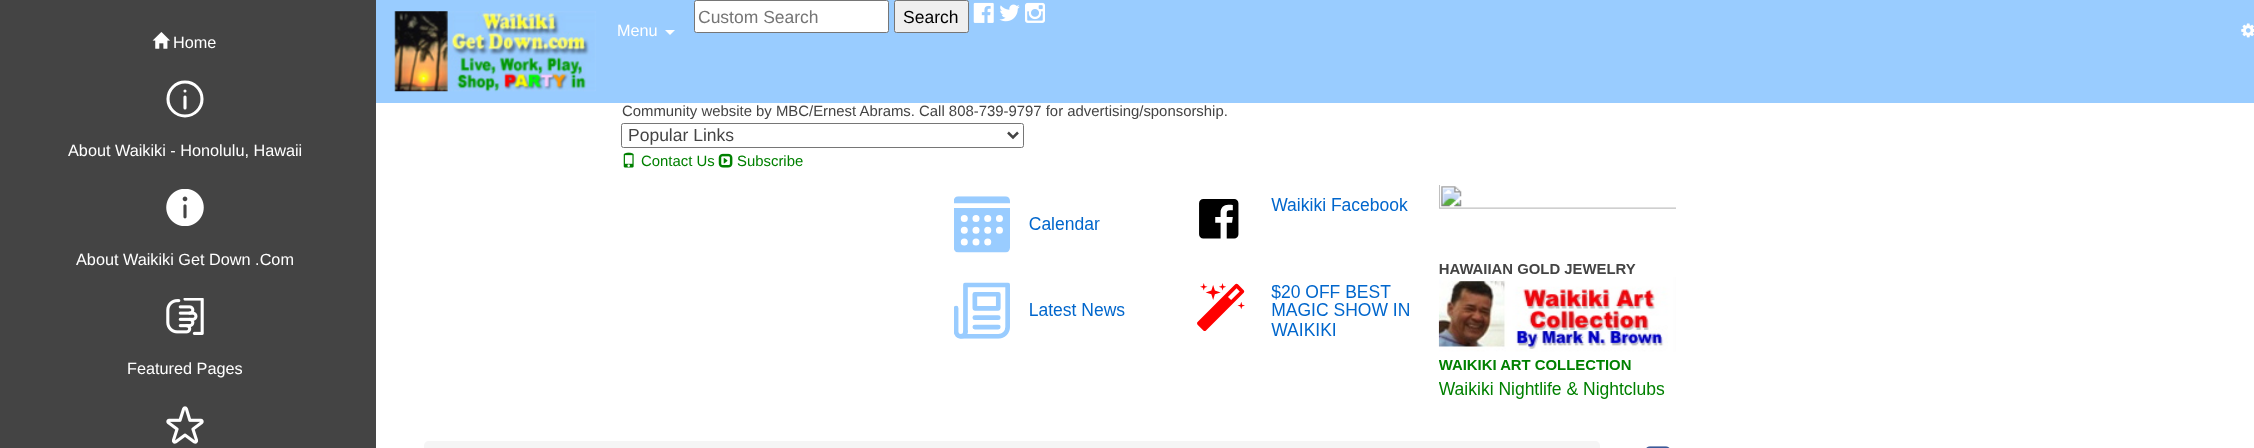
<?xml version="1.0" encoding="UTF-8"?>
<svg xmlns="http://www.w3.org/2000/svg" xmlns:xlink="http://www.w3.org/1999/xlink" width="2254" height="448">
  <rect width="100%" height="100%" fill="#444444" />
  <image x="152" y="32" width="18" height="17" xlink:href="image1.png" />
  <circle cx="185" cy="99" r="17" fill="none" stroke="#ffffff" stroke-width="3.1" />
  <path d="M 185 97 v 11 m 0 -17 h 0" fill="none" stroke="#ffffff" stroke-width="3.1" stroke-linecap="round" stroke-linejoin="round" />
  <image x="166" y="189" width="38" height="37" xlink:href="image2.png" />
  <image x="166" y="298" width="38" height="37" xlink:href="image3.png" />
  <image x="166" y="406" width="38" height="38" xlink:href="image4.png" />
  <rect x="376" y="103" width="1878" height="345" fill="#ffffff" />
  <rect x="376" width="1878" height="103" fill="#99ccff" />
  <image x="394" y="11" width="202" height="81" xlink:href="image5.png" />
  <rect x="694.5" y="0.5" width="194" height="32" rx="2" fill="#ffffff" stroke="#767676" />
  <rect x="894.5" y="0.5" width="74" height="32" rx="2" fill="#efefef" stroke="#767676" />
  <image x="973" y="2" width="21" height="21" xlink:href="image6.png" />
  <image x="999" y="4" width="21" height="18" xlink:href="image7.png" />
  <image x="1025" y="2" width="20" height="21" xlink:href="image8.png" />
  <path d="M 665 30 h 10 l -5 5 z" fill="#ffffff" />
  <image x="2241" y="23" width="13" height="15" xlink:href="image9.png" />
  <rect x="621.5" y="123.5" width="402" height="24" rx="2" fill="none" stroke="#767676" />
  <path d="M 1008 132.5 l 5 5 l 5 -5" fill="none" stroke="#444444" stroke-width="2.5" />
  <image x="623" y="152" width="11" height="16" xlink:href="image10.png" />
  <image x="718" y="153" width="15" height="15" xlink:href="image11.png" />
  <image x="954" y="196" width="171" height="143" xlink:href="image12.png" />
  <image x="1197" y="198" width="212" height="138" xlink:href="image13.png" />
  <image x="1438" y="185" width="238" height="214" xlink:href="image14.png" />
  <path d="M 429 441 h 1166 c 3 0 5 2 5 5 v 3 h -1176 v -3 c 0 -3 2 -5 5 -5 z" fill="#f5f5f5" />
  <image x="1646" y="446" width="24" height="2" xlink:href="image15.png" />
  <text x="173" y="48" style="font-family: Liberation Sans; font-size: 16.25px; fill: #ffffff">Home</text>
  <text x="68" y="156" style="font-family: Liberation Sans; font-size: 16.25px; fill: #ffffff">About Waikiki - Honolulu, Hawaii</text>
  <text x="76" y="265" style="font-family: Liberation Sans; font-size: 16.25px; fill: #ffffff">About Waikiki Get Down .Com</text>
  <text x="127" y="374" style="font-family: Liberation Sans; font-size: 16.25px; fill: #ffffff">Featured Pages</text>
  <text x="698" y="23" style="font-family: Liberation Sans; font-size: 17.5px; fill: #757575">Custom Search</text>
  <text x="903" y="23" style="font-family: Liberation Sans; font-size: 17.5px; fill: #000000">Search</text>
  <text x="617" y="36" style="font-family: Liberation Sans; font-size: 16.25px; fill: #ffffff">Menu</text>
  <text x="622" y="116" style="font-family: Liberation Sans; font-size: 14.9px; fill: #444444">Community website by MBC/Ernest Abrams. Call 808-739-9797 for advertising/sponsorship.</text>
  <text x="628" y="141" style="font-family: Liberation Sans; font-size: 17.5px; fill: #444444">Popular Links</text>
  <text x="641" y="166" style="font-family: Liberation Sans; font-size: 14.9px; fill: #008000">Contact Us</text>
  <text x="737" y="166" style="font-family: Liberation Sans; font-size: 14.9px; fill: #008000">Subscribe</text>
</svg>
